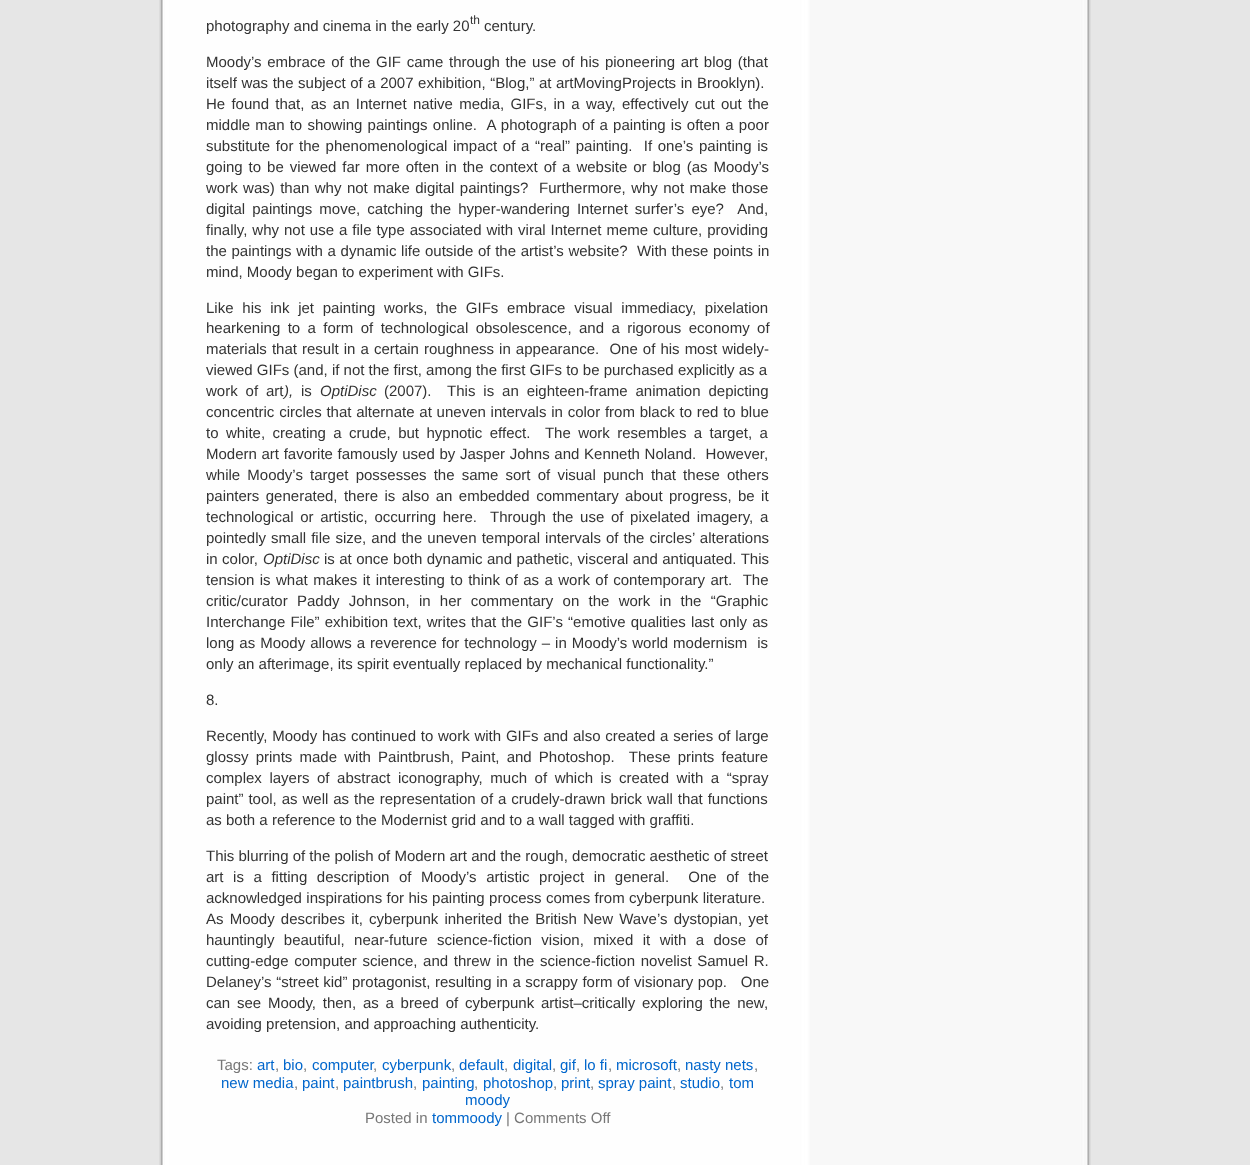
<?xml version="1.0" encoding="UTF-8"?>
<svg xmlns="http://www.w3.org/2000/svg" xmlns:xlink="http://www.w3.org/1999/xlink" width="1250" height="1165">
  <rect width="100%" height="100%" fill="#e6e6e6" />
  <image x="159" y="0" width="932" height="1165" xlink:href="image1.png" />
  <text x="206" y="31" style="font-family: Liberation Sans; font-size: 15px; fill: #333333">photography and cinema in the early 20</text>
  <text x="470" y="24" style="font-family: Liberation Sans; font-size: 12px; fill: #333333">th</text>
  <text x="484" y="31" style="font-family: Liberation Sans; font-size: 15px; fill: #333333">century.</text>
  <text x="206" y="67" word-spacing="1.5" style="font-family: Liberation Sans; font-size: 15px; fill: #333333">Moody’s embrace of the GIF came through the use of his pioneering art blog (that</text>
  <text x="206" y="88" word-spacing="0.4" style="font-family: Liberation Sans; font-size: 15px; fill: #333333">itself was the subject of a 2007 exhibition, “Blog,” at artMovingProjects in Brooklyn).</text>
  <text x="206" y="109" word-spacing="2.1" style="font-family: Liberation Sans; font-size: 15px; fill: #333333">He found that, as an Internet native media, GIFs, in a way, effectively cut out the</text>
  <text x="206" y="130" word-spacing="1" style="font-family: Liberation Sans; font-size: 15px; fill: #333333" xml:space="preserve">middle man to showing paintings online.  A photograph of a painting is often a poor</text>
  <text x="206" y="151" word-spacing="1.5" style="font-family: Liberation Sans; font-size: 15px; fill: #333333" xml:space="preserve">substitute for the phenomenological impact of a “real” painting.  If one’s painting is</text>
  <text x="206" y="172" word-spacing="1.75" style="font-family: Liberation Sans; font-size: 15px; fill: #333333">going to be viewed far more often in the context of a website or blog (as Moody’s</text>
  <text x="206" y="193" word-spacing="1.25" style="font-family: Liberation Sans; font-size: 15px; fill: #333333" xml:space="preserve">work was) than why not make digital paintings?  Furthermore, why not make those</text>
  <text x="206" y="214" word-spacing="2.9" style="font-family: Liberation Sans; font-size: 15px; fill: #333333" xml:space="preserve">digital paintings move, catching the hyper-wandering Internet surfer’s eye?  And,</text>
  <text x="206" y="235" word-spacing="0.8" style="font-family: Liberation Sans; font-size: 15px; fill: #333333">finally, why not use a file type associated with viral Internet meme culture, providing</text>
  <text x="206" y="256" word-spacing="0.5" style="font-family: Liberation Sans; font-size: 15px; fill: #333333" xml:space="preserve">the paintings with a dynamic life outside of the artist’s website?  With these points in</text>
  <text x="206" y="277" style="font-family: Liberation Sans; font-size: 15px; fill: #333333">mind, Moody began to experiment with GIFs.</text>
  <text x="206" y="313" word-spacing="4.6" style="font-family: Liberation Sans; font-size: 15px; fill: #333333">Like his ink jet painting works, the GIFs embrace visual immediacy, pixelation</text>
  <text x="206" y="333" word-spacing="3.25" style="font-family: Liberation Sans; font-size: 15px; fill: #333333">hearkening to a form of technological obsolescence, and a rigorous economy of</text>
  <text x="206" y="354" word-spacing="0.9" style="font-family: Liberation Sans; font-size: 15px; fill: #333333" xml:space="preserve">materials that result in a certain roughness in appearance.  One of his most widely-</text>
  <text x="206" y="375" style="font-family: Liberation Sans; font-size: 15px; fill: #333333">viewed GIFs (and, if not the first, among the first GIFs to be purchased explicitly as a</text>
  <text x="206" y="396" word-spacing="3.75" style="font-family: Liberation Sans; font-size: 15px; fill: #333333">work of art</text>
  <text x="284" y="396" style="font-family: Liberation Sans; font-size: 15px; font-style: italic; fill: #333333">),</text>
  <text x="301" y="396" style="font-family: Liberation Sans; font-size: 15px; fill: #333333">is</text>
  <text x="320" y="396" style="font-family: Liberation Sans; font-size: 15px; font-style: italic; fill: #333333">OptiDisc</text>
  <text x="384" y="396" word-spacing="3.75" style="font-family: Liberation Sans; font-size: 15px; fill: #333333" xml:space="preserve">(2007).  This is an eighteen-frame animation depicting</text>
  <text x="206" y="417" word-spacing="0.6" style="font-family: Liberation Sans; font-size: 15px; fill: #333333">concentric circles that alternate at uneven intervals in color from black to red to blue</text>
  <text x="206" y="438" word-spacing="3.25" style="font-family: Liberation Sans; font-size: 15px; fill: #333333" xml:space="preserve">to white, creating a crude, but hypnotic effect.  The work resembles a target, a</text>
  <text x="206" y="459" word-spacing="0.5" style="font-family: Liberation Sans; font-size: 15px; fill: #333333" xml:space="preserve">Modern art favorite famously used by Jasper Johns and Kenneth Noland.  However,</text>
  <text x="206" y="480" word-spacing="3" style="font-family: Liberation Sans; font-size: 15px; fill: #333333">while Moody’s target possesses the same sort of visual punch that these others</text>
  <text x="206" y="501" word-spacing="2.25" style="font-family: Liberation Sans; font-size: 15px; fill: #333333">painters generated, there is also an embedded commentary about progress, be it</text>
  <text x="206" y="522" word-spacing="2.5" style="font-family: Liberation Sans; font-size: 15px; fill: #333333" xml:space="preserve">technological or artistic, occurring here.  Through the use of pixelated imagery, a</text>
  <text x="206" y="543" word-spacing="0.9" style="font-family: Liberation Sans; font-size: 15px; fill: #333333">pointedly small file size, and the uneven temporal intervals of the circles’ alterations</text>
  <text x="206" y="564" word-spacing="0.25" style="font-family: Liberation Sans; font-size: 15px; fill: #333333">in color,</text>
  <text x="263" y="564" style="font-family: Liberation Sans; font-size: 15px; font-style: italic; fill: #333333">OptiDisc</text>
  <text x="324" y="564" word-spacing="0.25" style="font-family: Liberation Sans; font-size: 15px; fill: #333333">is at once both dynamic and pathetic, visceral and antiquated. This</text>
  <text x="206" y="585" word-spacing="1.25" style="font-family: Liberation Sans; font-size: 15px; fill: #333333" xml:space="preserve">tension is what makes it interesting to think of as a work of contemporary art.  The</text>
  <text x="206" y="606" word-spacing="5.1" style="font-family: Liberation Sans; font-size: 15px; fill: #333333">critic/curator Paddy Johnson, in her commentary on the work in the “Graphic</text>
  <text x="206" y="627" word-spacing="1" style="font-family: Liberation Sans; font-size: 15px; fill: #333333">Interchange File” exhibition text, writes that the GIF’s “emotive qualities last only as</text>
  <text x="206" y="648" word-spacing="0.8" style="font-family: Liberation Sans; font-size: 15px; fill: #333333" xml:space="preserve">long as Moody allows a reverence for technology – in Moody’s world modernism  is</text>
  <text x="206" y="669" style="font-family: Liberation Sans; font-size: 15px; fill: #333333">only an afterimage, its spirit eventually replaced by mechanical functionality.”</text>
  <text x="206" y="705" style="font-family: Liberation Sans; font-size: 15px; fill: #333333">8.</text>
  <text x="206" y="741" word-spacing="0.6" style="font-family: Liberation Sans; font-size: 15px; fill: #333333">Recently, Moody has continued to work with GIFs and also created a series of large</text>
  <text x="206" y="762" word-spacing="3" style="font-family: Liberation Sans; font-size: 15px; fill: #333333" xml:space="preserve">glossy prints made with Paintbrush, Paint, and Photoshop.  These prints feature</text>
  <text x="206" y="783" word-spacing="3.4" style="font-family: Liberation Sans; font-size: 15px; fill: #333333">complex layers of abstract iconography, much of which is created with a “spray</text>
  <text x="206" y="804" word-spacing="0.75" style="font-family: Liberation Sans; font-size: 15px; fill: #333333">paint” tool, as well as the representation of a crudely-drawn brick wall that functions</text>
  <text x="206" y="825" style="font-family: Liberation Sans; font-size: 15px; fill: #333333">as both a reference to the Modernist grid and to a wall tagged with graffiti.</text>
  <text x="206" y="861" style="font-family: Liberation Sans; font-size: 15px; fill: #333333">This blurring of the polish of Modern art and the rough, democratic aesthetic of street</text>
  <text x="206" y="882" word-spacing="5.4" style="font-family: Liberation Sans; font-size: 15px; fill: #333333" xml:space="preserve">art is a fitting description of Moody’s artistic project in general.  One of the</text>
  <text x="206" y="903" word-spacing="0.25" style="font-family: Liberation Sans; font-size: 15px; fill: #333333">acknowledged inspirations for his painting process comes from cyberpunk literature.</text>
  <text x="206" y="924" word-spacing="2" style="font-family: Liberation Sans; font-size: 15px; fill: #333333">As Moody describes it, cyberpunk inherited the British New Wave’s dystopian, yet</text>
  <text x="206" y="945" word-spacing="5.25" style="font-family: Liberation Sans; font-size: 15px; fill: #333333">hauntingly beautiful, near-future science-fiction vision, mixed it with a dose of</text>
  <text x="206" y="966" word-spacing="1.5" style="font-family: Liberation Sans; font-size: 15px; fill: #333333">cutting-edge computer science, and threw in the science-fiction novelist Samuel R.</text>
  <text x="206" y="987" word-spacing="0.4" style="font-family: Liberation Sans; font-size: 15px; fill: #333333" xml:space="preserve">Delaney’s “street kid” protagonist, resulting in a scrappy form of visionary pop.   One</text>
  <text x="206" y="1008" word-spacing="2.6" style="font-family: Liberation Sans; font-size: 15px; fill: #333333">can see Moody, then, as a breed of cyberpunk artist–critically exploring the new,</text>
  <text x="206" y="1029" style="font-family: Liberation Sans; font-size: 15px; fill: #333333">avoiding pretension, and approaching authenticity.</text>
  <text x="217" y="1070" style="font-family: Liberation Sans; font-size: 15px; fill: #777777">Tags:</text>
  <text x="257" y="1070" style="font-family: Liberation Sans; font-size: 15px; fill: #0066cc">art</text>
  <text x="275" y="1070" style="font-family: Liberation Sans; font-size: 15px; fill: #777777">,</text>
  <text x="283" y="1070" style="font-family: Liberation Sans; font-size: 15px; fill: #0066cc">bio</text>
  <text x="303" y="1070" style="font-family: Liberation Sans; font-size: 15px; fill: #777777">,</text>
  <text x="312" y="1070" style="font-family: Liberation Sans; font-size: 15px; fill: #0066cc">computer</text>
  <text x="373" y="1070" style="font-family: Liberation Sans; font-size: 15px; fill: #777777">,</text>
  <text x="382" y="1070" style="font-family: Liberation Sans; font-size: 15px; fill: #0066cc">cyberpunk</text>
  <text x="451" y="1070" style="font-family: Liberation Sans; font-size: 15px; fill: #777777">,</text>
  <text x="459" y="1070" style="font-family: Liberation Sans; font-size: 15px; fill: #0066cc">default</text>
  <text x="504" y="1070" style="font-family: Liberation Sans; font-size: 15px; fill: #777777">,</text>
  <text x="513" y="1070" style="font-family: Liberation Sans; font-size: 15px; fill: #0066cc">digital</text>
  <text x="552" y="1070" style="font-family: Liberation Sans; font-size: 15px; fill: #777777">,</text>
  <text x="560" y="1070" style="font-family: Liberation Sans; font-size: 15px; fill: #0066cc">gif</text>
  <text x="576" y="1070" style="font-family: Liberation Sans; font-size: 15px; fill: #777777">,</text>
  <text x="584" y="1070" style="font-family: Liberation Sans; font-size: 15px; fill: #0066cc">lo fi</text>
  <text x="608" y="1070" style="font-family: Liberation Sans; font-size: 15px; fill: #777777">,</text>
  <text x="616" y="1070" style="font-family: Liberation Sans; font-size: 15px; fill: #0066cc">microsoft</text>
  <text x="677" y="1070" style="font-family: Liberation Sans; font-size: 15px; fill: #777777">,</text>
  <text x="685" y="1070" style="font-family: Liberation Sans; font-size: 15px; fill: #0066cc">nasty nets</text>
  <text x="754" y="1070" style="font-family: Liberation Sans; font-size: 15px; fill: #777777">,</text>
  <text x="221" y="1088" style="font-family: Liberation Sans; font-size: 15px; fill: #0066cc">new media</text>
  <text x="294" y="1088" style="font-family: Liberation Sans; font-size: 15px; fill: #777777">,</text>
  <text x="302" y="1088" style="font-family: Liberation Sans; font-size: 15px; fill: #0066cc">paint</text>
  <text x="335" y="1088" style="font-family: Liberation Sans; font-size: 15px; fill: #777777">,</text>
  <text x="343" y="1088" style="font-family: Liberation Sans; font-size: 15px; fill: #0066cc">paintbrush</text>
  <text x="413" y="1088" style="font-family: Liberation Sans; font-size: 15px; fill: #777777">,</text>
  <text x="422" y="1088" style="font-family: Liberation Sans; font-size: 15px; fill: #0066cc">painting</text>
  <text x="474" y="1088" style="font-family: Liberation Sans; font-size: 15px; fill: #777777">,</text>
  <text x="483" y="1088" style="font-family: Liberation Sans; font-size: 15px; fill: #0066cc">photoshop</text>
  <text x="553" y="1088" style="font-family: Liberation Sans; font-size: 15px; fill: #777777">,</text>
  <text x="561" y="1088" style="font-family: Liberation Sans; font-size: 15px; fill: #0066cc">print</text>
  <text x="590" y="1088" style="font-family: Liberation Sans; font-size: 15px; fill: #777777">,</text>
  <text x="598" y="1088" style="font-family: Liberation Sans; font-size: 15px; fill: #0066cc">spray paint</text>
  <text x="672" y="1088" style="font-family: Liberation Sans; font-size: 15px; fill: #777777">,</text>
  <text x="680" y="1088" style="font-family: Liberation Sans; font-size: 15px; fill: #0066cc">studio</text>
  <text x="720" y="1088" style="font-family: Liberation Sans; font-size: 15px; fill: #777777">,</text>
  <text x="729" y="1088" style="font-family: Liberation Sans; font-size: 15px; fill: #0066cc">tom</text>
  <text x="465" y="1105" style="font-family: Liberation Sans; font-size: 15px; fill: #0066cc">moody</text>
  <text x="365" y="1123" style="font-family: Liberation Sans; font-size: 15px; fill: #777777">Posted in</text>
  <text x="432" y="1123" style="font-family: Liberation Sans; font-size: 15px; fill: #0066cc">tommoody</text>
  <text x="506" y="1123" style="font-family: Liberation Sans; font-size: 15px; fill: #777777">| Comments Off</text>
</svg>
